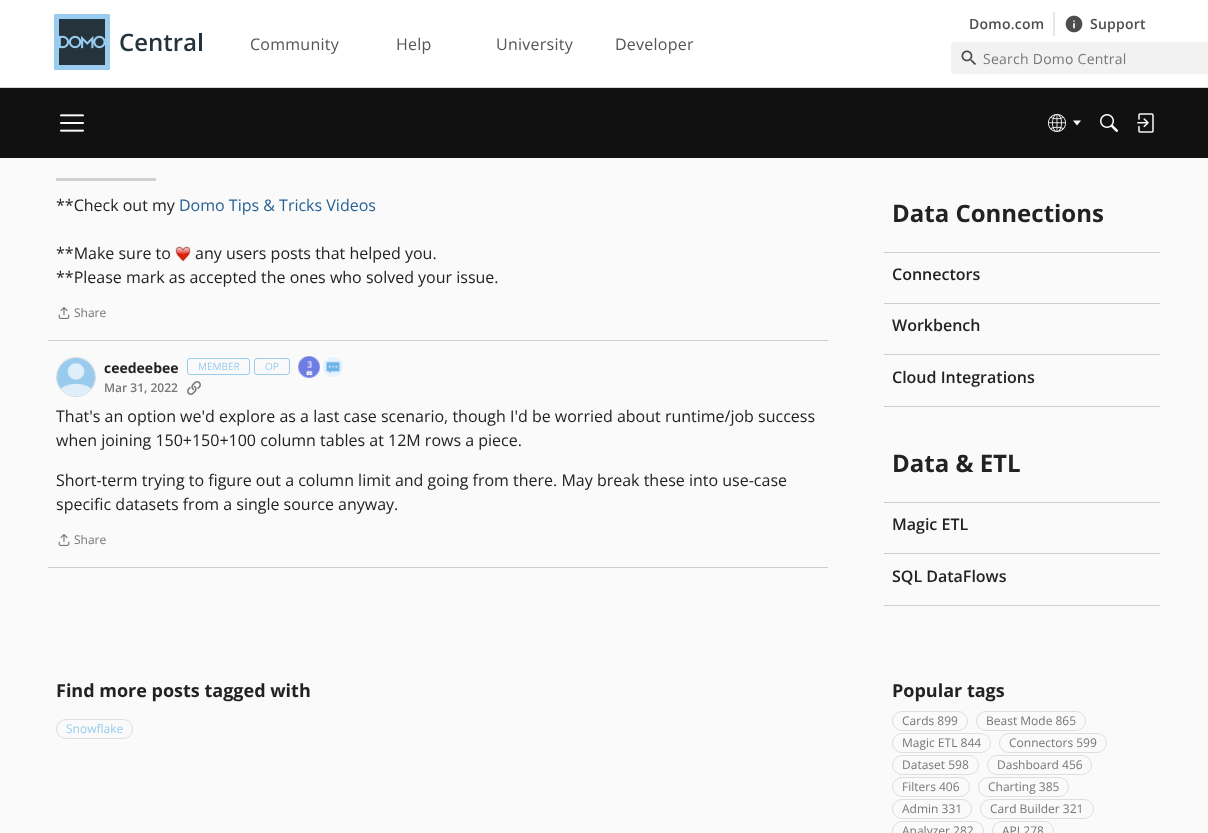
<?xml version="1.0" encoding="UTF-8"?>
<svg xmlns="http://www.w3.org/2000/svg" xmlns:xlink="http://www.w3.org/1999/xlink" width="1208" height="833">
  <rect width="100%" height="100%" fill="#fafafa" />
  <rect width="1208" height="87" fill="#ffffff" />
  <rect y="87" width="1208" height="1" fill="#d9d9d9" />
  <image x="54" y="14" width="148" height="56" xlink:href="image1.png" />
  <rect x="1053" y="12" width="2" height="24" fill="#e6e6e6" />
  <image x="1065" y="15" width="18" height="18" xlink:href="image2.png" />
  <rect x="951" y="42" width="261" height="32" rx="4" fill="#f2f2f2" />
  <image x="961" y="50" width="15" height="15" xlink:href="image3.png" />
  <rect y="88" width="1208" height="70" fill="#111111" />
  <image x="60" y="114" width="24" height="18" xlink:href="image4.png" />
  <image x="1048" y="114" width="18" height="18" xlink:href="image5.png" />
  <path d="M 1073 120.5 h 8 l -4 5 z" fill="#fafafa" />
  <image x="1100" y="114" width="18" height="18" xlink:href="image6.png" />
  <image x="1137" y="113" width="17" height="20" xlink:href="image7.png" />
  <rect x="56" y="178" width="100" height="3" fill="#cfcfcf" />
  <image x="175" y="246" width="16" height="16" xlink:href="image8.png" />
  <image x="58" y="307" width="12" height="12" xlink:href="image9.png" />
  <rect x="48" y="340" width="780" height="1" fill="#cfcfcf" />
  <circle cx="76" cy="377" r="19.5" fill="none" stroke="#dadada" />
  <image x="57" y="358" width="38" height="38" xlink:href="image10.png" />
  <rect x="187.5" y="358.5" width="62" height="16" rx="2.5" fill="none" stroke="#99ccee" />
  <rect x="254.5" y="358.5" width="35" height="16" rx="2.5" fill="none" stroke="#99ccee" />
  <image x="298" y="356" width="22" height="22" xlink:href="image11.png" />
  <image x="323" y="356" width="21" height="22" xlink:href="image12.png" />
  <image x="187" y="381" width="14" height="14" xlink:href="image13.png" />
  <image x="58" y="534" width="12" height="12" xlink:href="image9.png" />
  <rect x="48" y="567" width="780" height="1" fill="#cfcfcf" />
  <rect x="884" y="252" width="276" height="1" fill="#cfcfcf" />
  <rect x="884" y="303" width="276" height="1" fill="#cfcfcf" />
  <rect x="884" y="354" width="276" height="1" fill="#cfcfcf" />
  <rect x="884" y="406" width="276" height="1" fill="#cfcfcf" />
  <rect x="884" y="502" width="276" height="1" fill="#cfcfcf" />
  <rect x="884" y="553" width="276" height="1" fill="#cfcfcf" />
  <rect x="884" y="605" width="276" height="1" fill="#cfcfcf" />
  <rect x="56.5" y="719.5" width="76" height="19" rx="9.5" fill="none" stroke="#dddee0" />
  <rect x="892.5" y="711.5" width="75" height="19" rx="9.5" fill="none" stroke="#dddee0" />
  <rect x="976.5" y="711.5" width="109" height="19" rx="9.5" fill="none" stroke="#dddee0" />
  <rect x="892.5" y="733.5" width="98" height="19" rx="9.5" fill="none" stroke="#dddee0" />
  <rect x="999.5" y="733.5" width="107" height="19" rx="9.5" fill="none" stroke="#dddee0" />
  <rect x="892.5" y="755.5" width="86" height="19" rx="9.5" fill="none" stroke="#dddee0" />
  <rect x="987.5" y="755.5" width="104" height="19" rx="9.5" fill="none" stroke="#dddee0" />
  <rect x="892.5" y="777.5" width="77" height="19" rx="9.5" fill="none" stroke="#dddee0" />
  <rect x="978.5" y="777.5" width="90" height="19" rx="9.5" fill="none" stroke="#dddee0" />
  <rect x="892.5" y="799.5" width="79" height="19" rx="9.5" fill="none" stroke="#dddee0" />
  <rect x="980.5" y="799.5" width="113" height="19" rx="9.5" fill="none" stroke="#dddee0" />
  <rect x="892.5" y="821.5" width="91" height="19" rx="9.5" fill="none" stroke="#dddee0" />
  <rect x="992.5" y="821.5" width="61" height="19" rx="9.5" fill="none" stroke="#dddee0" />
  <text x="969" y="29" style="font-family: Open Sans; font-size: 14px; font-weight: 600; letter-spacing: 0.25px; fill: #4d4d4d">Domo.com</text>
  <text x="1090" y="29" style="font-family: Open Sans; font-size: 14px; font-weight: 600; letter-spacing: 0.25px; fill: #4d4d4d">Support</text>
  <text x="250" y="50" style="font-family: Open Sans; font-size: 16px; letter-spacing: 0.25px; fill: #555555">Community</text>
  <text x="396" y="50" style="font-family: Open Sans; font-size: 16px; letter-spacing: 0.25px; fill: #555555">Help</text>
  <text x="496" y="50" style="font-family: Open Sans; font-size: 16px; letter-spacing: 0.25px; fill: #555555">University</text>
  <text x="615" y="50" style="font-family: Open Sans; font-size: 16px; letter-spacing: 0.25px; fill: #555555">Developer</text>
  <text x="983" y="64" style="font-family: Open Sans; font-size: 14px; letter-spacing: 0.25px; fill: #767676">Search Domo Central</text>
  <text x="56" y="211" style="font-family: Open Sans; font-size: 16px; fill: #222222">**Check out my</text>
  <text x="179" y="211" style="font-family: Open Sans; font-size: 16px; fill: #276296">Domo Tips &amp; Tricks Videos</text>
  <text x="56" y="259" style="font-family: Open Sans; font-size: 16px; fill: #222222">**Make sure to</text>
  <text x="195" y="259" style="font-family: Open Sans; font-size: 16px; fill: #222222">any users posts that helped you.</text>
  <text x="56" y="283" style="font-family: Open Sans; font-size: 16px; fill: #222222">**Please mark as accepted the ones who solved your issue.</text>
  <text x="74" y="317" style="font-family: Open Sans; font-size: 12px; fill: #767676">Share</text>
  <text x="104" y="373" style="font-family: Open Sans; font-size: 14px; font-weight: bold; fill: #222222">ceedeebee</text>
  <text x="198" y="370" style="font-family: Open Sans; font-size: 10px; fill: #99ccee">MEMBER</text>
  <text x="265" y="370" style="font-family: Open Sans; font-size: 10px; fill: #99ccee">OP</text>
  <text x="104" y="392" style="font-family: Open Sans; font-size: 12px; font-weight: 600; fill: #767676">Mar 31, 2022</text>
  <text x="56" y="422" style="font-family: Open Sans; font-size: 16px; fill: #222222">That's an option we'd explore as a last case scenario, though I'd be worried about runtime/job success</text>
  <text x="56" y="446" style="font-family: Open Sans; font-size: 16px; fill: #222222">when joining 150+150+100 column tables at 12M rows a piece.</text>
  <text x="56" y="486" style="font-family: Open Sans; font-size: 16px; fill: #222222">Short-term trying to figure out a column limit and going from there. May break these into use-case</text>
  <text x="56" y="510" style="font-family: Open Sans; font-size: 16px; fill: #222222">specific datasets from a single source anyway.</text>
  <text x="74" y="544" style="font-family: Open Sans; font-size: 12px; fill: #767676">Share</text>
  <text x="892" y="222" style="font-family: Open Sans; font-size: 24px; font-weight: bold; fill: #222222">Data Connections</text>
  <text x="892" y="280" style="font-family: Open Sans; font-size: 16px; font-weight: 600; fill: #222222">Connectors</text>
  <text x="892" y="331" style="font-family: Open Sans; font-size: 16px; font-weight: 600; fill: #222222">Workbench</text>
  <text x="892" y="383" style="font-family: Open Sans; font-size: 16px; font-weight: 600; fill: #222222">Cloud Integrations</text>
  <text x="892" y="472" style="font-family: Open Sans; font-size: 24px; font-weight: bold; fill: #222222">Data &amp; ETL</text>
  <text x="892" y="530" style="font-family: Open Sans; font-size: 16px; font-weight: 600; fill: #222222">Magic ETL</text>
  <text x="892" y="582" style="font-family: Open Sans; font-size: 16px; font-weight: 600; fill: #222222">SQL DataFlows</text>
  <text x="56" y="697" style="font-family: Open Sans; font-size: 18px; font-weight: bold; fill: #222222">Find more posts tagged with</text>
  <text x="66" y="733" style="font-family: Open Sans; font-size: 12px; fill: #99ccee">Snowflake</text>
  <text x="892" y="697" style="font-family: Open Sans; font-size: 18px; font-weight: bold; fill: #222222">Popular tags</text>
  <text x="902" y="725" style="font-family: Open Sans; font-size: 12px; fill: #767676">Cards 899</text>
  <text x="986" y="725" style="font-family: Open Sans; font-size: 12px; fill: #767676">Beast Mode 865</text>
  <text x="902" y="747" style="font-family: Open Sans; font-size: 12px; fill: #767676">Magic ETL 844</text>
  <text x="1009" y="747" style="font-family: Open Sans; font-size: 12px; fill: #767676">Connectors 599</text>
  <text x="902" y="769" style="font-family: Open Sans; font-size: 12px; fill: #767676">Dataset 598</text>
  <text x="997" y="769" style="font-family: Open Sans; font-size: 12px; fill: #767676">Dashboard 456</text>
  <text x="902" y="791" style="font-family: Open Sans; font-size: 12px; fill: #767676">Filters 406</text>
  <text x="988" y="791" style="font-family: Open Sans; font-size: 12px; fill: #767676">Charting 385</text>
  <text x="902" y="813" style="font-family: Open Sans; font-size: 12px; fill: #767676">Admin 331</text>
  <text x="990" y="813" style="font-family: Open Sans; font-size: 12px; fill: #767676">Card Builder 321</text>
  <text x="902" y="835" style="font-family: Open Sans; font-size: 12px; fill: #767676">Analyzer 282</text>
  <text x="1002" y="835" style="font-family: Open Sans; font-size: 12px; fill: #767676">API 278</text>
</svg>
